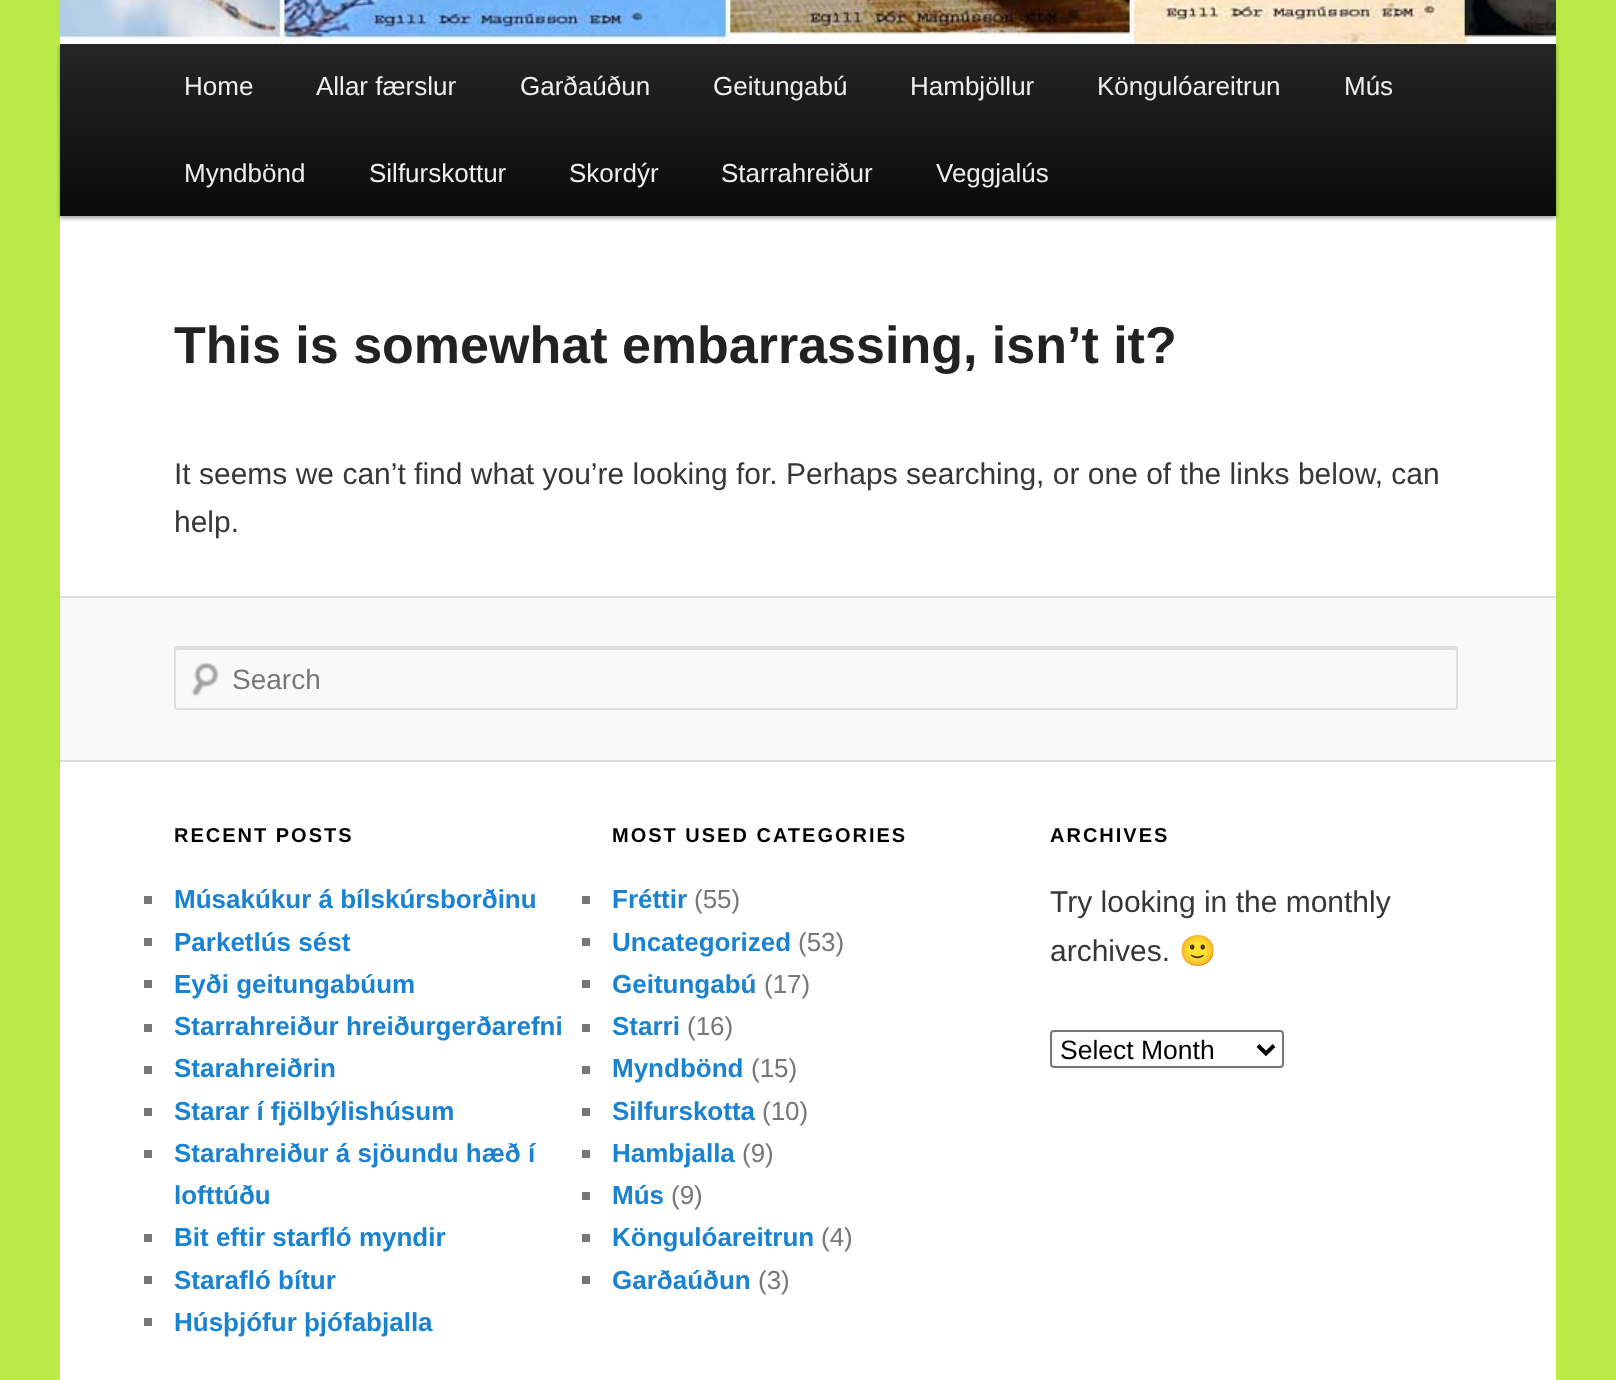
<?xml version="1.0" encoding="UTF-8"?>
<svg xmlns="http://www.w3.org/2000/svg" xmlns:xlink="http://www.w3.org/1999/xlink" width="1616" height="1380">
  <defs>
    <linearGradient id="g1" gradientUnits="userSpaceOnUse" x1="808" y1="44" x2="808" y2="216"><stop offset="0" stop-color="#252525" /><stop offset="1" stop-color="#0a0a0a" /></linearGradient>
  </defs>
  <rect width="100%" height="100%" fill="#baea48" />
  <rect x="60" y="216" width="1496" height="1164" fill="#ffffff" />
  <rect x="60" y="46" width="1496" height="172" fill="#000000" fill-opacity="0.4" filter="blur(2px)" />
  <image x="60" y="0" width="1496" height="44" xlink:href="image1.png" />
  <rect x="60" y="44" width="1496" height="172" fill="url(#g1)" />
  <rect x="60" y="598" width="1496" height="162" fill="#f9f9f9" />
  <rect x="60" y="596" width="1496" height="2" fill="#dddddd" />
  <rect x="60" y="760" width="1496" height="2" fill="#dddddd" />
  <image x="191" y="662" width="28" height="35" xlink:href="image2.png" />
  <path d="M 178 650 h 1276 c 1 0 2 1 2 2 c 0 -2 0 -4 -2 -4 h -1276 c -2 0 -2 2 -2 4 c 0 -1 1 -2 2 -2 z" fill="#e0e0e0" />
  <rect x="175" y="647" width="1282" height="62" rx="3" fill="none" stroke="#dddddd" stroke-width="2" />
  <rect x="144" y="896" width="8" height="8" fill="#777777" />
  <rect x="144" y="938" width="8" height="8" fill="#777777" />
  <rect x="144" y="980" width="8" height="8" fill="#777777" />
  <rect x="144" y="1024" width="8" height="8" fill="#777777" />
  <rect x="144" y="1066" width="8" height="8" fill="#777777" />
  <rect x="144" y="1108" width="8" height="8" fill="#777777" />
  <rect x="144" y="1150" width="8" height="8" fill="#777777" />
  <rect x="144" y="1234" width="8" height="8" fill="#777777" />
  <rect x="144" y="1276" width="8" height="8" fill="#777777" />
  <rect x="144" y="1318" width="8" height="8" fill="#777777" />
  <rect x="582" y="896" width="8" height="8" fill="#777777" />
  <rect x="582" y="938" width="8" height="8" fill="#777777" />
  <rect x="582" y="980" width="8" height="8" fill="#777777" />
  <rect x="582" y="1024" width="8" height="8" fill="#777777" />
  <rect x="582" y="1066" width="8" height="8" fill="#777777" />
  <rect x="582" y="1108" width="8" height="8" fill="#777777" />
  <rect x="582" y="1150" width="8" height="8" fill="#777777" />
  <rect x="582" y="1192" width="8" height="8" fill="#777777" />
  <rect x="582" y="1234" width="8" height="8" fill="#777777" />
  <rect x="582" y="1276" width="8" height="8" fill="#777777" />
  <rect x="1051" y="1031" width="232" height="36" rx="3" fill="none" stroke="#767676" stroke-width="2" />
  <path d="M 1258 1045.5 l 8 8 l 8 -8" fill="none" stroke="#000000" stroke-width="4" />
  <text x="184" y="95" style="font-family: Liberation Sans; font-size: 26px; fill: #eeeeee">Home</text>
  <text x="316" y="95" style="font-family: Liberation Sans; font-size: 26px; fill: #eeeeee">Allar færslur</text>
  <text x="520" y="95" style="font-family: Liberation Sans; font-size: 26px; fill: #eeeeee">Garðaúðun</text>
  <text x="713" y="95" style="font-family: Liberation Sans; font-size: 26px; fill: #eeeeee">Geitungabú</text>
  <text x="910" y="95" style="font-family: Liberation Sans; font-size: 26px; fill: #eeeeee">Hambjöllur</text>
  <text x="1097" y="95" style="font-family: Liberation Sans; font-size: 26px; fill: #eeeeee">Köngulóareitrun</text>
  <text x="1344" y="95" style="font-family: Liberation Sans; font-size: 26px; fill: #eeeeee">Mús</text>
  <text x="184" y="182" style="font-family: Liberation Sans; font-size: 26px; fill: #eeeeee">Myndbönd</text>
  <text x="369" y="182" style="font-family: Liberation Sans; font-size: 26px; fill: #eeeeee">Silfurskottur</text>
  <text x="569" y="182" style="font-family: Liberation Sans; font-size: 26px; fill: #eeeeee">Skordýr</text>
  <text x="721" y="182" style="font-family: Liberation Sans; font-size: 26px; fill: #eeeeee">Starrahreiður</text>
  <text x="936" y="182" style="font-family: Liberation Sans; font-size: 26px; fill: #eeeeee">Veggjalús</text>
  <text x="174" y="363" style="font-family: Liberation Sans; font-size: 52px; font-weight: bold; fill: #222222">This is somewhat embarrassing, isn’t it?</text>
  <text x="174" y="484" style="font-family: Liberation Sans; font-size: 30px; fill: #373737">It seems we can’t find what you’re looking for. Perhaps searching, or one of the links below, can</text>
  <text x="174" y="532" style="font-family: Liberation Sans; font-size: 30px; fill: #373737">help.</text>
  <text x="232" y="689" style="font-family: Liberation Sans; font-size: 28px; fill: #777777">Search</text>
  <text x="174" y="842" style="font-family: Liberation Sans; font-size: 20px; font-weight: bold; letter-spacing: 2px; fill: #000000">RECENT POSTS</text>
  <text x="174" y="908" style="font-family: Liberation Sans; font-size: 26px; font-weight: bold; fill: #1982d1">Músakúkur á bílskúrsborðinu</text>
  <text x="174" y="951" style="font-family: Liberation Sans; font-size: 26px; font-weight: bold; fill: #1982d1">Parketlús sést</text>
  <text x="174" y="993" style="font-family: Liberation Sans; font-size: 26px; font-weight: bold; fill: #1982d1">Eyði geitungabúum</text>
  <text x="174" y="1035" style="font-family: Liberation Sans; font-size: 26px; font-weight: bold; fill: #1982d1">Starrahreiður hreiðurgerðarefni</text>
  <text x="174" y="1077" style="font-family: Liberation Sans; font-size: 26px; font-weight: bold; fill: #1982d1">Starahreiðrin</text>
  <text x="174" y="1120" style="font-family: Liberation Sans; font-size: 26px; font-weight: bold; fill: #1982d1">Starar í fjölbýlishúsum</text>
  <text x="174" y="1162" style="font-family: Liberation Sans; font-size: 26px; font-weight: bold; fill: #1982d1">Starahreiður á sjöundu hæð í</text>
  <text x="174" y="1204" style="font-family: Liberation Sans; font-size: 26px; font-weight: bold; fill: #1982d1">lofttúðu</text>
  <text x="174" y="1246" style="font-family: Liberation Sans; font-size: 26px; font-weight: bold; fill: #1982d1">Bit eftir starfló myndir</text>
  <text x="174" y="1289" style="font-family: Liberation Sans; font-size: 26px; font-weight: bold; fill: #1982d1">Starafló bítur</text>
  <text x="174" y="1331" style="font-family: Liberation Sans; font-size: 26px; font-weight: bold; fill: #1982d1">Húsþjófur þjófabjalla</text>
  <text x="612" y="842" style="font-family: Liberation Sans; font-size: 20px; font-weight: bold; letter-spacing: 2px; fill: #000000">MOST USED CATEGORIES</text>
  <text x="612" y="908" style="font-family: Liberation Sans; font-size: 26px; font-weight: bold; fill: #1982d1">Fréttir</text>
  <text x="694" y="908" style="font-family: Liberation Sans; font-size: 26px; fill: #777777">(55)</text>
  <text x="612" y="951" style="font-family: Liberation Sans; font-size: 26px; font-weight: bold; fill: #1982d1">Uncategorized</text>
  <text x="798" y="951" style="font-family: Liberation Sans; font-size: 26px; fill: #777777">(53)</text>
  <text x="612" y="993" style="font-family: Liberation Sans; font-size: 26px; font-weight: bold; fill: #1982d1">Geitungabú</text>
  <text x="764" y="993" style="font-family: Liberation Sans; font-size: 26px; fill: #777777">(17)</text>
  <text x="612" y="1035" style="font-family: Liberation Sans; font-size: 26px; font-weight: bold; fill: #1982d1">Starri</text>
  <text x="687" y="1035" style="font-family: Liberation Sans; font-size: 26px; fill: #777777">(16)</text>
  <text x="612" y="1077" style="font-family: Liberation Sans; font-size: 26px; font-weight: bold; fill: #1982d1">Myndbönd</text>
  <text x="751" y="1077" style="font-family: Liberation Sans; font-size: 26px; fill: #777777">(15)</text>
  <text x="612" y="1120" style="font-family: Liberation Sans; font-size: 26px; font-weight: bold; fill: #1982d1">Silfurskotta</text>
  <text x="762" y="1120" style="font-family: Liberation Sans; font-size: 26px; fill: #777777">(10)</text>
  <text x="612" y="1162" style="font-family: Liberation Sans; font-size: 26px; font-weight: bold; fill: #1982d1">Hambjalla</text>
  <text x="742" y="1162" style="font-family: Liberation Sans; font-size: 26px; fill: #777777">(9)</text>
  <text x="612" y="1204" style="font-family: Liberation Sans; font-size: 26px; font-weight: bold; fill: #1982d1">Mús</text>
  <text x="671" y="1204" style="font-family: Liberation Sans; font-size: 26px; fill: #777777">(9)</text>
  <text x="612" y="1246" style="font-family: Liberation Sans; font-size: 26px; font-weight: bold; fill: #1982d1">Köngulóareitrun</text>
  <text x="821" y="1246" style="font-family: Liberation Sans; font-size: 26px; fill: #777777">(4)</text>
  <text x="612" y="1289" style="font-family: Liberation Sans; font-size: 26px; font-weight: bold; fill: #1982d1">Garðaúðun</text>
  <text x="758" y="1289" style="font-family: Liberation Sans; font-size: 26px; fill: #777777">(3)</text>
  <text x="1050" y="842" style="font-family: Liberation Sans; font-size: 20px; font-weight: bold; letter-spacing: 2px; fill: #000000">ARCHIVES</text>
  <text x="1050" y="912" style="font-family: Liberation Sans; font-size: 30px; fill: #373737">Try looking in the monthly</text>
  <text x="1050" y="961" style="font-family: Liberation Sans; font-size: 30px; fill: #373737">archives.</text>
  <text x="1179" y="961" style="font-family: Noto Color Emoji; font-size: 30px; fill: #373737">🙂</text>
  <text x="1060" y="1059" style="font-family: Liberation Sans; font-size: 26.5px; fill: #000000">Select Month</text>
</svg>
